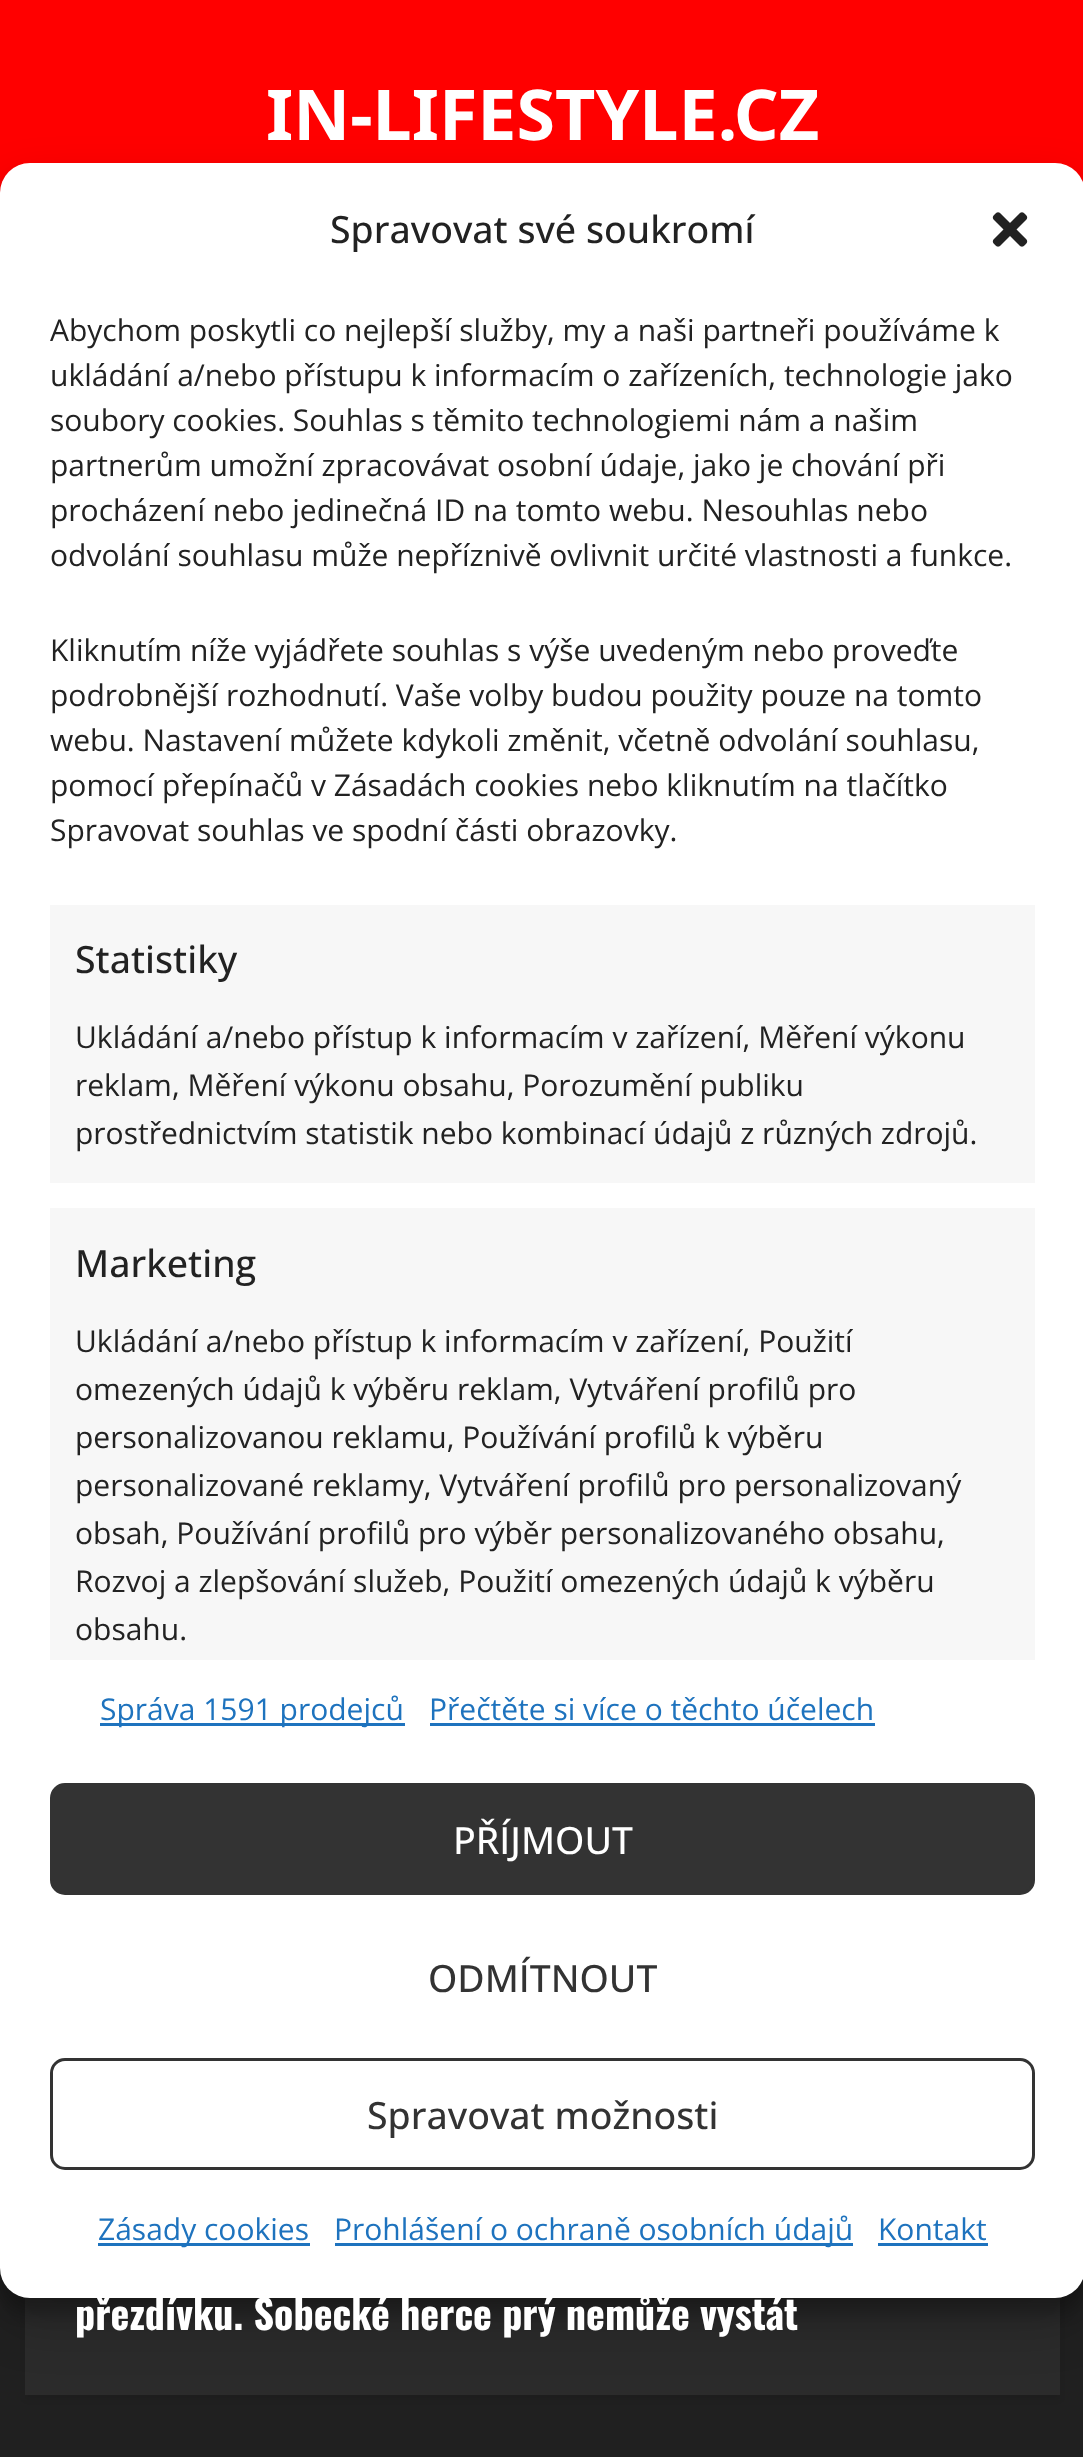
<?xml version="1.0" encoding="UTF-8"?>
<svg xmlns="http://www.w3.org/2000/svg" xmlns:xlink="http://www.w3.org/1999/xlink" width="1083" height="2457">
  <rect width="100%" height="100%" fill="#ff0000" />
  <rect y="2268" width="1083" height="189" fill="#202020" />
  <rect x="25" y="1218" width="1035" height="1182" fill="#000000" fill-opacity="0.08" filter="blur(2.5px)" />
  <rect x="25" y="2297" width="1035" height="98" fill="#2b2b2b" />
  <rect y="178" width="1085" height="2135" rx="30" fill="#000000" fill-opacity="0.23" filter="blur(7.5px)" />
  <rect y="188" width="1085" height="2135" rx="30" fill="#000000" fill-opacity="0.19" filter="blur(25px)" />
  <rect y="163" width="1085" height="2135" rx="30" fill="#ffffff" />
  <image x="992" y="212" width="36" height="35" xlink:href="image1.png" />
  <rect x="50" y="905" width="985" height="278" fill="#f7f7f7" />
  <rect x="50" y="1208" width="985" height="452" fill="#f7f7f7" />
  <rect x="100" y="1723" width="305" height="3" fill="#1e73be" />
  <rect x="430" y="1723" width="445" height="3" fill="#1e73be" />
  <rect x="51.5" y="1784.5" width="982" height="109" rx="13.5" fill="#333333" stroke="#333333" stroke-width="3" />
  <rect x="51.5" y="2059.5" width="982" height="109" rx="13.5" fill="none" stroke="#333333" stroke-width="3" />
  <rect x="98" y="2243" width="212" height="3" fill="#1e73be" />
  <rect x="335" y="2243" width="518" height="3" fill="#1e73be" />
  <rect x="878" y="2243" width="110" height="3" fill="#1e73be" />
  <text x="266" y="140" style="font-family: Noto Sans; font-size: 70px; font-weight: bold; fill: #ffffff">IN-LIFESTYLE.CZ</text>
  <text x="75" y="2330" style="font-family: Oswald; font-size: 40px; font-weight: bold; fill: #ffffff">přezdívku. Sobecké herce prý nemůže vystát</text>
  <text x="330" y="243" style="font-family: Open Sans; font-size: 37.5px; font-weight: 500; fill: #222222">Spravovat své soukromí</text>
  <text x="50" y="341" style="font-family: Open Sans; font-size: 30px; fill: #222222">Abychom poskytli co nejlepší služby, my a naši partneři používáme k</text>
  <text x="50" y="386" style="font-family: Open Sans; font-size: 30px; fill: #222222">ukládání a/nebo přístupu k informacím o zařízeních, technologie jako</text>
  <text x="50" y="431" style="font-family: Open Sans; font-size: 30px; fill: #222222">soubory cookies. Souhlas s těmito technologiemi nám a našim</text>
  <text x="50" y="476" style="font-family: Open Sans; font-size: 30px; fill: #222222">partnerům umožní zpracovávat osobní údaje, jako je chování při</text>
  <text x="50" y="521" style="font-family: Open Sans; font-size: 30px; fill: #222222">procházení nebo jedinečná ID na tomto webu. Nesouhlas nebo</text>
  <text x="50" y="566" style="font-family: Open Sans; font-size: 30px; fill: #222222">odvolání souhlasu může nepříznivě ovlivnit určité vlastnosti a funkce.</text>
  <text x="50" y="661" style="font-family: Open Sans; font-size: 30px; fill: #222222">Kliknutím níže vyjádřete souhlas s výše uvedeným nebo proveďte</text>
  <text x="50" y="706" style="font-family: Open Sans; font-size: 30px; fill: #222222">podrobnější rozhodnutí. Vaše volby budou použity pouze na tomto</text>
  <text x="50" y="751" style="font-family: Open Sans; font-size: 30px; fill: #222222">webu. Nastavení můžete kdykoli změnit, včetně odvolání souhlasu,</text>
  <text x="50" y="796" style="font-family: Open Sans; font-size: 30px; fill: #222222">pomocí přepínačů v Zásadách cookies nebo kliknutím na tlačítko</text>
  <text x="50" y="841" style="font-family: Open Sans; font-size: 30px; fill: #222222">Spravovat souhlas ve spodní části obrazovky.</text>
  <text x="75" y="973" style="font-family: Open Sans; font-size: 37.5px; font-weight: 500; fill: #222222">Statistiky</text>
  <text x="75" y="1048" style="font-family: Open Sans; font-size: 30px; fill: #222222">Ukládání a/nebo přístup k informacím v zařízení, Měření výkonu</text>
  <text x="75" y="1096" style="font-family: Open Sans; font-size: 30px; fill: #222222">reklam, Měření výkonu obsahu, Porozumění publiku</text>
  <text x="75" y="1144" style="font-family: Open Sans; font-size: 30px; fill: #222222">prostřednictvím statistik nebo kombinací údajů z různých zdrojů.</text>
  <text x="75" y="1277" style="font-family: Open Sans; font-size: 37.5px; font-weight: 500; fill: #222222">Marketing</text>
  <text x="75" y="1352" style="font-family: Open Sans; font-size: 30px; fill: #222222">Ukládání a/nebo přístup k informacím v zařízení, Použití</text>
  <text x="75" y="1400" style="font-family: Open Sans; font-size: 30px; fill: #222222">omezených údajů k výběru reklam, Vytváření profilů pro</text>
  <text x="75" y="1448" style="font-family: Open Sans; font-size: 30px; fill: #222222">personalizovanou reklamu, Používání profilů k výběru</text>
  <text x="75" y="1496" style="font-family: Open Sans; font-size: 30px; fill: #222222">personalizované reklamy, Vytváření profilů pro personalizovaný</text>
  <text x="75" y="1544" style="font-family: Open Sans; font-size: 30px; fill: #222222">obsah, Používání profilů pro výběr personalizovaného obsahu,</text>
  <text x="75" y="1592" style="font-family: Open Sans; font-size: 30px; fill: #222222">Rozvoj a zlepšování služeb, Použití omezených údajů k výběru</text>
  <text x="75" y="1640" style="font-family: Open Sans; font-size: 30px; fill: #222222">obsahu.</text>
  <text x="100" y="1720" style="font-family: Open Sans; font-size: 30px; fill: #1e73be">Správa 1591 prodejců</text>
  <text x="429" y="1720" style="font-family: Open Sans; font-size: 30px; fill: #1e73be">Přečtěte si více o těchto účelech</text>
  <text x="453" y="1854" style="font-family: Open Sans; font-size: 37.5px; font-weight: 500; fill: #ffffff">PŘÍJMOUT</text>
  <text x="428" y="1992" style="font-family: Open Sans; font-size: 37.5px; font-weight: 500; fill: #333333">ODMÍTNOUT</text>
  <text x="367" y="2129" style="font-family: Open Sans; font-size: 37.5px; font-weight: 500; fill: #333333">Spravovat možnosti</text>
  <text x="98" y="2240" style="font-family: Open Sans; font-size: 30px; fill: #1e73be">Zásady cookies</text>
  <text x="334" y="2240" style="font-family: Open Sans; font-size: 30px; fill: #1e73be">Prohlášení o ochraně osobních údajů</text>
  <text x="878" y="2240" style="font-family: Open Sans; font-size: 30px; fill: #1e73be">Kontakt</text>
</svg>
